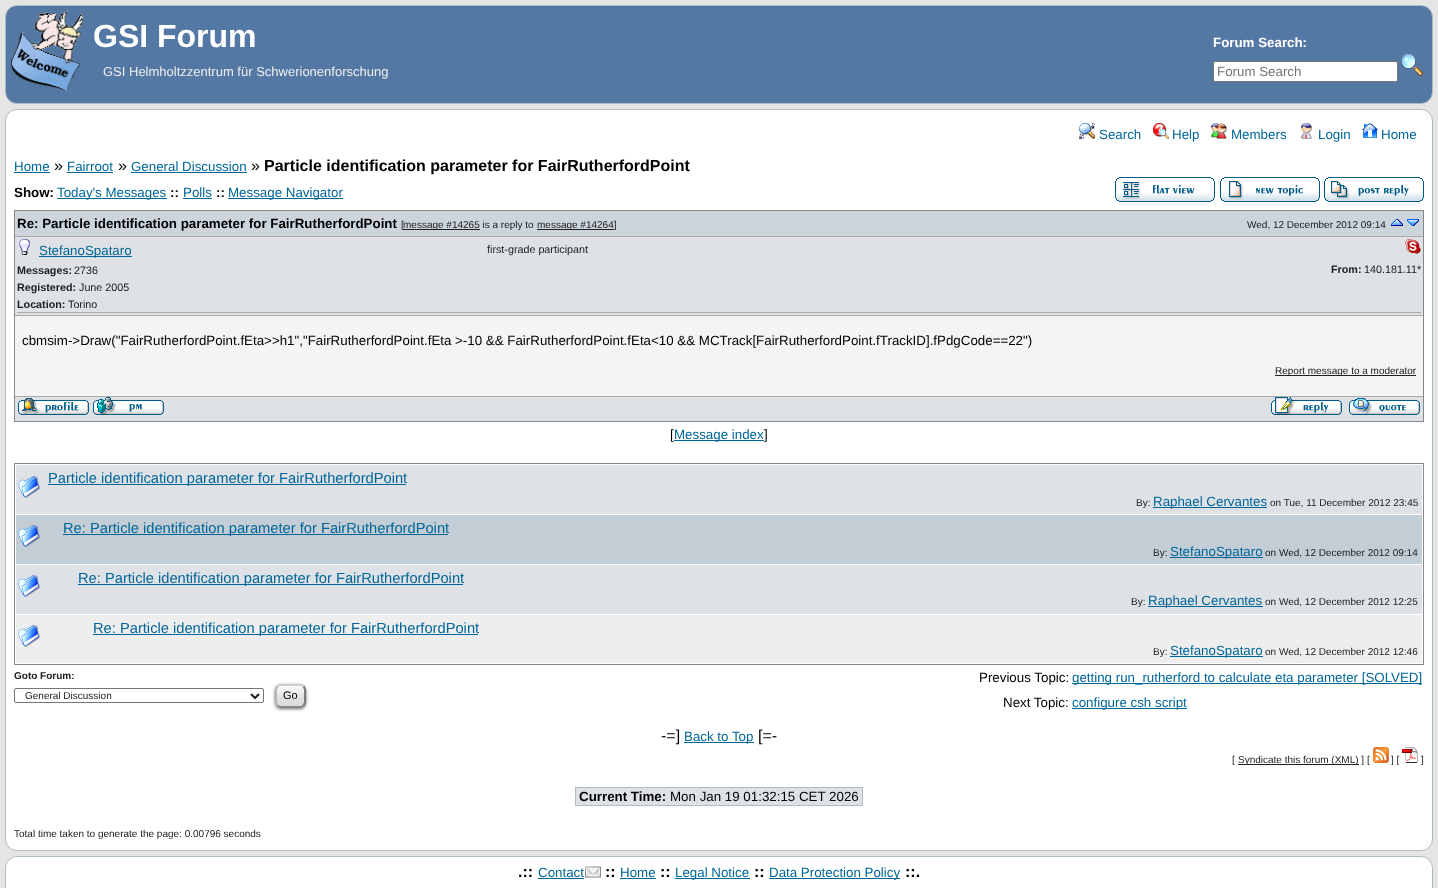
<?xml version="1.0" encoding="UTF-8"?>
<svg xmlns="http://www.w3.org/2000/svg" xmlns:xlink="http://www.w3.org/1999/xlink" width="1438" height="888">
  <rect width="100%" height="100%" fill="#e5e5e5" />
  <rect x="5.5" y="5.5" width="1427" height="98" rx="11.5" fill="#5478a4" stroke="#aebdc4" />
  <image x="11" y="11" width="72" height="80" xlink:href="image1.png" />
  <rect x="1213.5" y="61.5" width="184" height="20" rx="1.5" fill="#ffffff" stroke="#767676" />
  <image x="1401" y="54" width="22" height="22" xlink:href="image2.png" />
  <rect x="5.5" y="109.5" width="1427" height="741" rx="11.5" fill="#ffffff" stroke="#aebdc4" />
  <image x="1079" y="123" width="16" height="16" xlink:href="image3.png" />
  <image x="1153" y="123" width="16" height="16" xlink:href="image4.png" />
  <image x="1211" y="123" width="16" height="16" xlink:href="image5.png" />
  <image x="1301" y="123" width="12" height="16" xlink:href="image6.png" />
  <image x="1362" y="123" width="16" height="15" xlink:href="image7.png" />
  <rect x="14" y="172" width="36" height="1" fill="#006699" />
  <rect x="67" y="172" width="46" height="1" fill="#006699" />
  <rect x="131" y="172" width="116" height="1" fill="#006699" />
  <rect x="57" y="198" width="110" height="1" fill="#006699" />
  <rect x="183" y="198" width="29" height="1" fill="#006699" />
  <rect x="228" y="198" width="115" height="1" fill="#006699" />
  <image x="1115" y="177" width="100" height="25" xlink:href="image8.png" />
  <image x="1220" y="177" width="100" height="25" xlink:href="image9.png" />
  <image x="1324" y="177" width="100" height="25" xlink:href="image10.png" />
  <rect x="14.5" y="210.5" width="1409" height="211" fill="none" stroke="#888888" />
  <rect x="15" y="211" width="1408" height="25" fill="#ccd4dc" />
  <rect x="15" y="236" width="1408" height="1" fill="#aaaaaa" />
  <rect x="403" y="229" width="77" height="1" fill="#202020" />
  <rect x="537" y="229" width="77" height="1" fill="#202020" />
  <image x="1391" y="219" width="12" height="7" xlink:href="image11.png" />
  <image x="1407" y="219" width="12" height="7" xlink:href="image12.png" />
  <rect x="15" y="237" width="1408" height="78" fill="#dee2e6" />
  <rect x="15" y="315" width="1408" height="1" fill="#aaaaaa" />
  <rect x="17" y="312" width="1404" height="1" fill="#aaaaaa" />
  <image x="19" y="239" width="11" height="16" xlink:href="image13.png" />
  <rect x="39" y="256" width="93" height="1" fill="#006699" />
  <image x="1405" y="239" width="16" height="15" xlink:href="image14.png" />
  <rect x="15" y="316" width="1408" height="80" fill="#f4f4f4" />
  <rect x="15" y="396" width="1408" height="1" fill="#aaaaaa" />
  <rect x="1275" y="375" width="141" height="1" fill="#202020" />
  <rect x="15" y="397" width="1408" height="24" fill="#dee2e6" />
  <image x="18" y="398" width="71" height="17" xlink:href="image15.png" />
  <image x="93" y="397" width="71" height="18" xlink:href="image16.png" />
  <image x="1271" y="397" width="71" height="18" xlink:href="image17.png" />
  <image x="1349" y="398" width="71" height="17" xlink:href="image18.png" />
  <rect x="14.5" y="463.5" width="1409" height="201" fill="none" stroke="#888888" />
  <rect x="16" y="465" width="1406" height="49" fill="#dee2e6" />
  <image x="18" y="476" width="22" height="22" xlink:href="image19.png" />
  <rect x="48" y="484" width="358" height="1" fill="#006699" />
  <rect x="1153" y="507" width="114" height="1" fill="#006699" />
  <rect x="16" y="515" width="1406" height="49" fill="#c2cdd6" />
  <image x="18" y="525" width="22" height="22" xlink:href="image20.png" />
  <rect x="63" y="534" width="385" height="1" fill="#006699" />
  <rect x="1170" y="557" width="93" height="1" fill="#006699" />
  <rect x="16" y="565" width="1406" height="49" fill="#dee2e6" />
  <image x="18" y="575" width="22" height="22" xlink:href="image19.png" />
  <rect x="78" y="584" width="385" height="1" fill="#006699" />
  <rect x="1148" y="606" width="115" height="1" fill="#006699" />
  <rect x="16" y="615" width="1406" height="48" fill="#eeeeee" />
  <image x="18" y="625" width="22" height="22" xlink:href="image21.png" />
  <rect x="93" y="634" width="385" height="1" fill="#006699" />
  <rect x="1170" y="656" width="93" height="1" fill="#006699" />
  <rect x="1072" y="683" width="350" height="1" fill="#006699" />
  <rect x="1072" y="708" width="115" height="1" fill="#006699" />
  <rect x="14.5" y="688.5" width="249" height="14" rx="1.5" fill="none" stroke="#767676" />
  <path d="M 251 694 l 4 4 l 4 -4" fill="none" stroke="#202020" stroke-width="2" />
  <rect x="275" y="685" width="31" height="24" rx="6" fill="#000000" fill-opacity="0.6" filter="blur(1.5px)" />
  <rect x="275" y="684" width="31" height="24" rx="6" fill="#dddddd" />
  <image x="275" y="686" width="31" height="12" xlink:href="image22.png" />
  <path d="M 277.5 686.5 c 1 -1 2 -1.5 3.5 -1.5 h 19 c 1.5 0 2.5 0.5 3.5 1.5" fill="none" stroke="#cccccc" stroke-width="2" />
  <path d="M 303.5 686.5 c 2.5 2.5 1.5 6.5 1.5 9.5 c 0 3 1 7 -1.5 9.5" fill="none" stroke="#787778" stroke-width="2" />
  <path d="M 303.5 705.5 c -1 1 -2 1.5 -3.5 1.5 h -19 c -1.5 0 -2.5 -0.5 -3.5 -1.5" fill="none" stroke="#888888" stroke-width="2" />
  <path d="M 277.5 705.5 c -2.5 -2.5 -1.5 -6.5 -1.5 -9.5 c 0 -3 -1 -7 1.5 -9.5" fill="none" stroke="#b4b2b4" stroke-width="2" />
  <rect x="684" y="742" width="70" height="1" fill="#006699" />
  <rect x="1238" y="764" width="121" height="1" fill="#202020" />
  <image x="1373" y="747" width="16" height="16" xlink:href="image23.png" />
  <image x="1402" y="747" width="16" height="16" xlink:href="image24.png" />
  <rect x="576" y="788" width="286" height="17" fill="#dee2e6" />
  <rect x="575" y="787" width="288" height="1" fill="#aebdc4" />
  <rect x="575" y="805" width="91" height="1" fill="#aebdc4" />
  <rect x="575" y="787" width="1" height="19" fill="#aebdc4" />
  <rect x="862" y="787" width="1" height="19" fill="#aebdc4" />
  <rect x="666" y="805" width="197" height="1" fill="#aebdc4" />
  <rect x="5.5" y="856.5" width="1427" height="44" rx="11.5" fill="#ffffff" stroke="#aebdc4" />
  <rect x="538" y="878" width="46" height="1" fill="#006699" />
  <image x="585" y="866" width="16" height="12" xlink:href="image25.png" />
  <rect x="620" y="878" width="36" height="1" fill="#006699" />
  <rect x="675" y="878" width="75" height="1" fill="#006699" />
  <rect x="769" y="878" width="131" height="1" fill="#006699" />
  <text x="93" y="47" style="font-family: Liberation Sans; font-size: 32px; font-weight: bold; fill: #ffffff">GSI Forum</text>
  <text x="1213" y="47" style="font-family: Liberation Sans; font-size: 13.33px; font-weight: bold; fill: #ffffff">Forum Search:</text>
  <text x="1217" y="76" style="font-family: Liberation Sans; font-size: 13.33px; fill: #757575">Forum Search</text>
  <text x="103" y="76" style="font-family: Liberation Sans; font-size: 13px; fill: #eeeeee">GSI Helmholtzzentrum für Schwerionenforschung</text>
  <text x="1099" y="139" style="font-family: Liberation Sans; font-size: 13.33px; fill: #006699">Search</text>
  <text x="1172" y="139" style="font-family: Liberation Sans; font-size: 13.33px; fill: #006699">Help</text>
  <text x="1231" y="139" style="font-family: Liberation Sans; font-size: 13.33px; fill: #006699">Members</text>
  <text x="1318" y="139" style="font-family: Liberation Sans; font-size: 13.33px; fill: #006699">Login</text>
  <text x="1381" y="139" style="font-family: Liberation Sans; font-size: 13.33px; fill: #006699">Home</text>
  <text x="14" y="171" style="font-family: Liberation Sans; font-size: 13.33px; fill: #006699">Home</text>
  <text x="54" y="171" style="font-family: Liberation Sans; font-size: 16px; fill: #000000">»</text>
  <text x="67" y="171" style="font-family: Liberation Sans; font-size: 13.33px; fill: #006699">Fairroot</text>
  <text x="118" y="171" style="font-family: Liberation Sans; font-size: 16px; fill: #000000">»</text>
  <text x="131" y="171" style="font-family: Liberation Sans; font-size: 13.33px; fill: #006699">General Discussion</text>
  <text x="251" y="171" style="font-family: Liberation Sans; font-size: 16px; fill: #000000">»</text>
  <text x="264" y="171" style="font-family: Liberation Sans; font-size: 16px; font-weight: bold; fill: #000000">Particle identification parameter for FairRutherfordPoint</text>
  <text x="14" y="197" style="font-family: Liberation Sans; font-size: 13.33px; font-weight: bold; fill: #000000">Show:</text>
  <text x="57" y="197" style="font-family: Liberation Sans; font-size: 13.33px; fill: #006699">Today's Messages</text>
  <text x="170" y="197" style="font-family: Liberation Sans; font-size: 13.33px; font-weight: bold; fill: #000000">::</text>
  <text x="183" y="197" style="font-family: Liberation Sans; font-size: 13.33px; fill: #006699">Polls</text>
  <text x="216" y="197" style="font-family: Liberation Sans; font-size: 13.33px; font-weight: bold; fill: #000000">::</text>
  <text x="228" y="197" style="font-family: Liberation Sans; font-size: 13.33px; fill: #006699">Message Navigator</text>
  <text x="17" y="228" style="font-family: Liberation Sans; font-size: 13.33px; font-weight: bold; fill: #000000">Re: Particle identification parameter for FairRutherfordPoint</text>
  <text x="401" y="228" style="font-family: Liberation Sans; font-size: 10px; fill: #202020">[</text>
  <text x="403" y="228" style="font-family: Liberation Sans; font-size: 10px; fill: #202020">message #14265 is a reply to</text>
  <text x="537" y="228" style="font-family: Liberation Sans; font-size: 10px; fill: #202020">message #14264]</text>
  <text x="1247" y="228" style="font-family: Liberation Sans; font-size: 10px; fill: #202020">Wed, 12 December 2012 09:14</text>
  <text x="39" y="255" style="font-family: Liberation Sans; font-size: 13.33px; fill: #006699">StefanoSpataro</text>
  <text x="17" y="274" style="font-family: Liberation Sans; font-size: 10.75px; font-weight: bold; fill: #202020">Messages:</text>
  <text x="74" y="274" style="font-family: Liberation Sans; font-size: 10.75px; fill: #202020">2736</text>
  <text x="17" y="291" style="font-family: Liberation Sans; font-size: 10.75px; font-weight: bold; fill: #202020">Registered:</text>
  <text x="79" y="291" style="font-family: Liberation Sans; font-size: 10.75px; fill: #202020">June 2005</text>
  <text x="17" y="308" style="font-family: Liberation Sans; font-size: 10.75px; font-weight: bold; fill: #202020">Location:</text>
  <text x="68" y="308" style="font-family: Liberation Sans; font-size: 10.75px; fill: #202020">Torino</text>
  <text x="487" y="253" style="font-family: Liberation Sans; font-size: 10.75px; fill: #202020">first-grade participant</text>
  <text x="1331" y="273" style="font-family: Liberation Sans; font-size: 10.75px; font-weight: bold; fill: #202020">From:</text>
  <text x="1364" y="273" style="font-family: Liberation Sans; font-size: 10.75px; fill: #202020">140.181.11*</text>
  <text x="22" y="345" style="font-family: Liberation Sans; font-size: 13.33px; fill: #000000">cbmsim-&gt;Draw("FairRutherfordPoint.fEta&gt;&gt;h1","FairRutherfordPoint.fEta &gt;-10 &amp;&amp; FairRutherfordPoint.fEta&lt;10 &amp;&amp; MCTrack[FairRutherfordPoint.fTrackID].fPdgCode==22")</text>
  <text x="1275" y="374" style="font-family: Liberation Sans; font-size: 10px; fill: #202020">Report message to a moderator</text>
  <text x="670" y="439" style="font-family: Liberation Sans; font-size: 13.33px; fill: #000000">[</text>
  <rect x="674" y="440" width="90" height="1" fill="#006699" />
  <text x="674" y="439" style="font-family: Liberation Sans; font-size: 13.33px; fill: #006699">Message index</text>
  <text x="764" y="439" style="font-family: Liberation Sans; font-size: 13.33px; fill: #000000">]</text>
  <text x="48" y="483" style="font-family: Liberation Sans; font-size: 14.7px; fill: #006699">Particle identification parameter for FairRutherfordPoint</text>
  <text x="1136" y="506" style="font-family: Liberation Sans; font-size: 10px; fill: #202020">By:</text>
  <text x="1153" y="506" style="font-family: Liberation Sans; font-size: 13.33px; fill: #006699">Raphael Cervantes</text>
  <text x="1270" y="506" style="font-family: Liberation Sans; font-size: 10px; fill: #202020">on Tue, 11 December 2012 23:45</text>
  <text x="63" y="533" style="font-family: Liberation Sans; font-size: 14.7px; fill: #006699">Re: Particle identification parameter for FairRutherfordPoint</text>
  <text x="1153" y="556" style="font-family: Liberation Sans; font-size: 10px; fill: #202020">By:</text>
  <text x="1170" y="556" style="font-family: Liberation Sans; font-size: 13.33px; fill: #006699">StefanoSpataro</text>
  <text x="1265" y="556" style="font-family: Liberation Sans; font-size: 10px; fill: #202020">on Wed, 12 December 2012 09:14</text>
  <text x="78" y="583" style="font-family: Liberation Sans; font-size: 14.7px; fill: #006699">Re: Particle identification parameter for FairRutherfordPoint</text>
  <text x="1131" y="605" style="font-family: Liberation Sans; font-size: 10px; fill: #202020">By:</text>
  <text x="1148" y="605" style="font-family: Liberation Sans; font-size: 13.33px; fill: #006699">Raphael Cervantes</text>
  <text x="1265" y="605" style="font-family: Liberation Sans; font-size: 10px; fill: #202020">on Wed, 12 December 2012 12:25</text>
  <text x="93" y="633" style="font-family: Liberation Sans; font-size: 14.7px; fill: #006699">Re: Particle identification parameter for FairRutherfordPoint</text>
  <text x="1153" y="655" style="font-family: Liberation Sans; font-size: 10px; fill: #202020">By:</text>
  <text x="1170" y="655" style="font-family: Liberation Sans; font-size: 13.33px; fill: #006699">StefanoSpataro</text>
  <text x="1265" y="655" style="font-family: Liberation Sans; font-size: 10px; fill: #202020">on Wed, 12 December 2012 12:46</text>
  <text x="14" y="679" style="font-family: Liberation Sans; font-size: 10px; font-weight: bold; fill: #202020">Goto Forum:</text>
  <text x="979" y="682" style="font-family: Liberation Sans; font-size: 13.33px; fill: #000000">Previous Topic:</text>
  <text x="1072" y="682" style="font-family: Liberation Sans; font-size: 13.33px; fill: #006699">getting run_rutherford to calculate eta parameter [SOLVED]</text>
  <text x="1003" y="707" style="font-family: Liberation Sans; font-size: 13.33px; fill: #000000">Next Topic:</text>
  <text x="1072" y="707" style="font-family: Liberation Sans; font-size: 13.33px; fill: #006699">configure csh script</text>
  <text x="25" y="699" style="font-family: Liberation Sans; font-size: 10px; fill: #202020">General Discussion</text>
  <text x="283" y="699" style="font-family: Liberation Sans; font-size: 11px; fill: #000000">Go</text>
  <text x="661" y="741" style="font-family: Liberation Sans; font-size: 16px; fill: #000000">-=]</text>
  <text x="684" y="741" style="font-family: Liberation Sans; font-size: 13.33px; fill: #006699">Back to Top</text>
  <text x="758" y="741" style="font-family: Liberation Sans; font-size: 16px; fill: #000000">[=-</text>
  <text x="1232" y="763" style="font-family: Liberation Sans; font-size: 10px; fill: #202020">[</text>
  <text x="1238" y="763" style="font-family: Liberation Sans; font-size: 10px; fill: #202020">Syndicate this forum (XML) ] [</text>
  <text x="1391" y="763" style="font-family: Liberation Sans; font-size: 10px; fill: #202020">] [</text>
  <text x="1421" y="763" style="font-family: Liberation Sans; font-size: 10px; fill: #202020">]</text>
  <text x="579" y="801" style="font-family: Liberation Sans; font-size: 13.33px; font-weight: bold; fill: #000000">Current Time:</text>
  <text x="670" y="801" style="font-family: Liberation Sans; font-size: 13.33px; fill: #000000">Mon Jan 19 01:32:15 CET 2026</text>
  <text x="14" y="837" style="font-family: Liberation Sans; font-size: 10px; fill: #202020">Total time taken to generate the page: 0.00796 seconds</text>
  <text x="518" y="877" style="font-family: Liberation Sans; font-size: 16px; font-weight: bold; fill: #000000">.::</text>
  <text x="538" y="877" style="font-family: Liberation Sans; font-size: 13.33px; fill: #006699">Contact</text>
  <text x="605" y="877" style="font-family: Liberation Sans; font-size: 16px; font-weight: bold; fill: #000000">::</text>
  <text x="620" y="877" style="font-family: Liberation Sans; font-size: 13.33px; fill: #006699">Home</text>
  <text x="660" y="877" style="font-family: Liberation Sans; font-size: 16px; font-weight: bold; fill: #000000">::</text>
  <text x="675" y="877" style="font-family: Liberation Sans; font-size: 13.33px; fill: #006699">Legal Notice</text>
  <text x="754" y="877" style="font-family: Liberation Sans; font-size: 16px; font-weight: bold; fill: #000000">::</text>
  <text x="769" y="877" style="font-family: Liberation Sans; font-size: 13.33px; fill: #006699">Data Protection Policy</text>
  <text x="905" y="877" style="font-family: Liberation Sans; font-size: 16px; font-weight: bold; fill: #000000">::.</text>
</svg>
